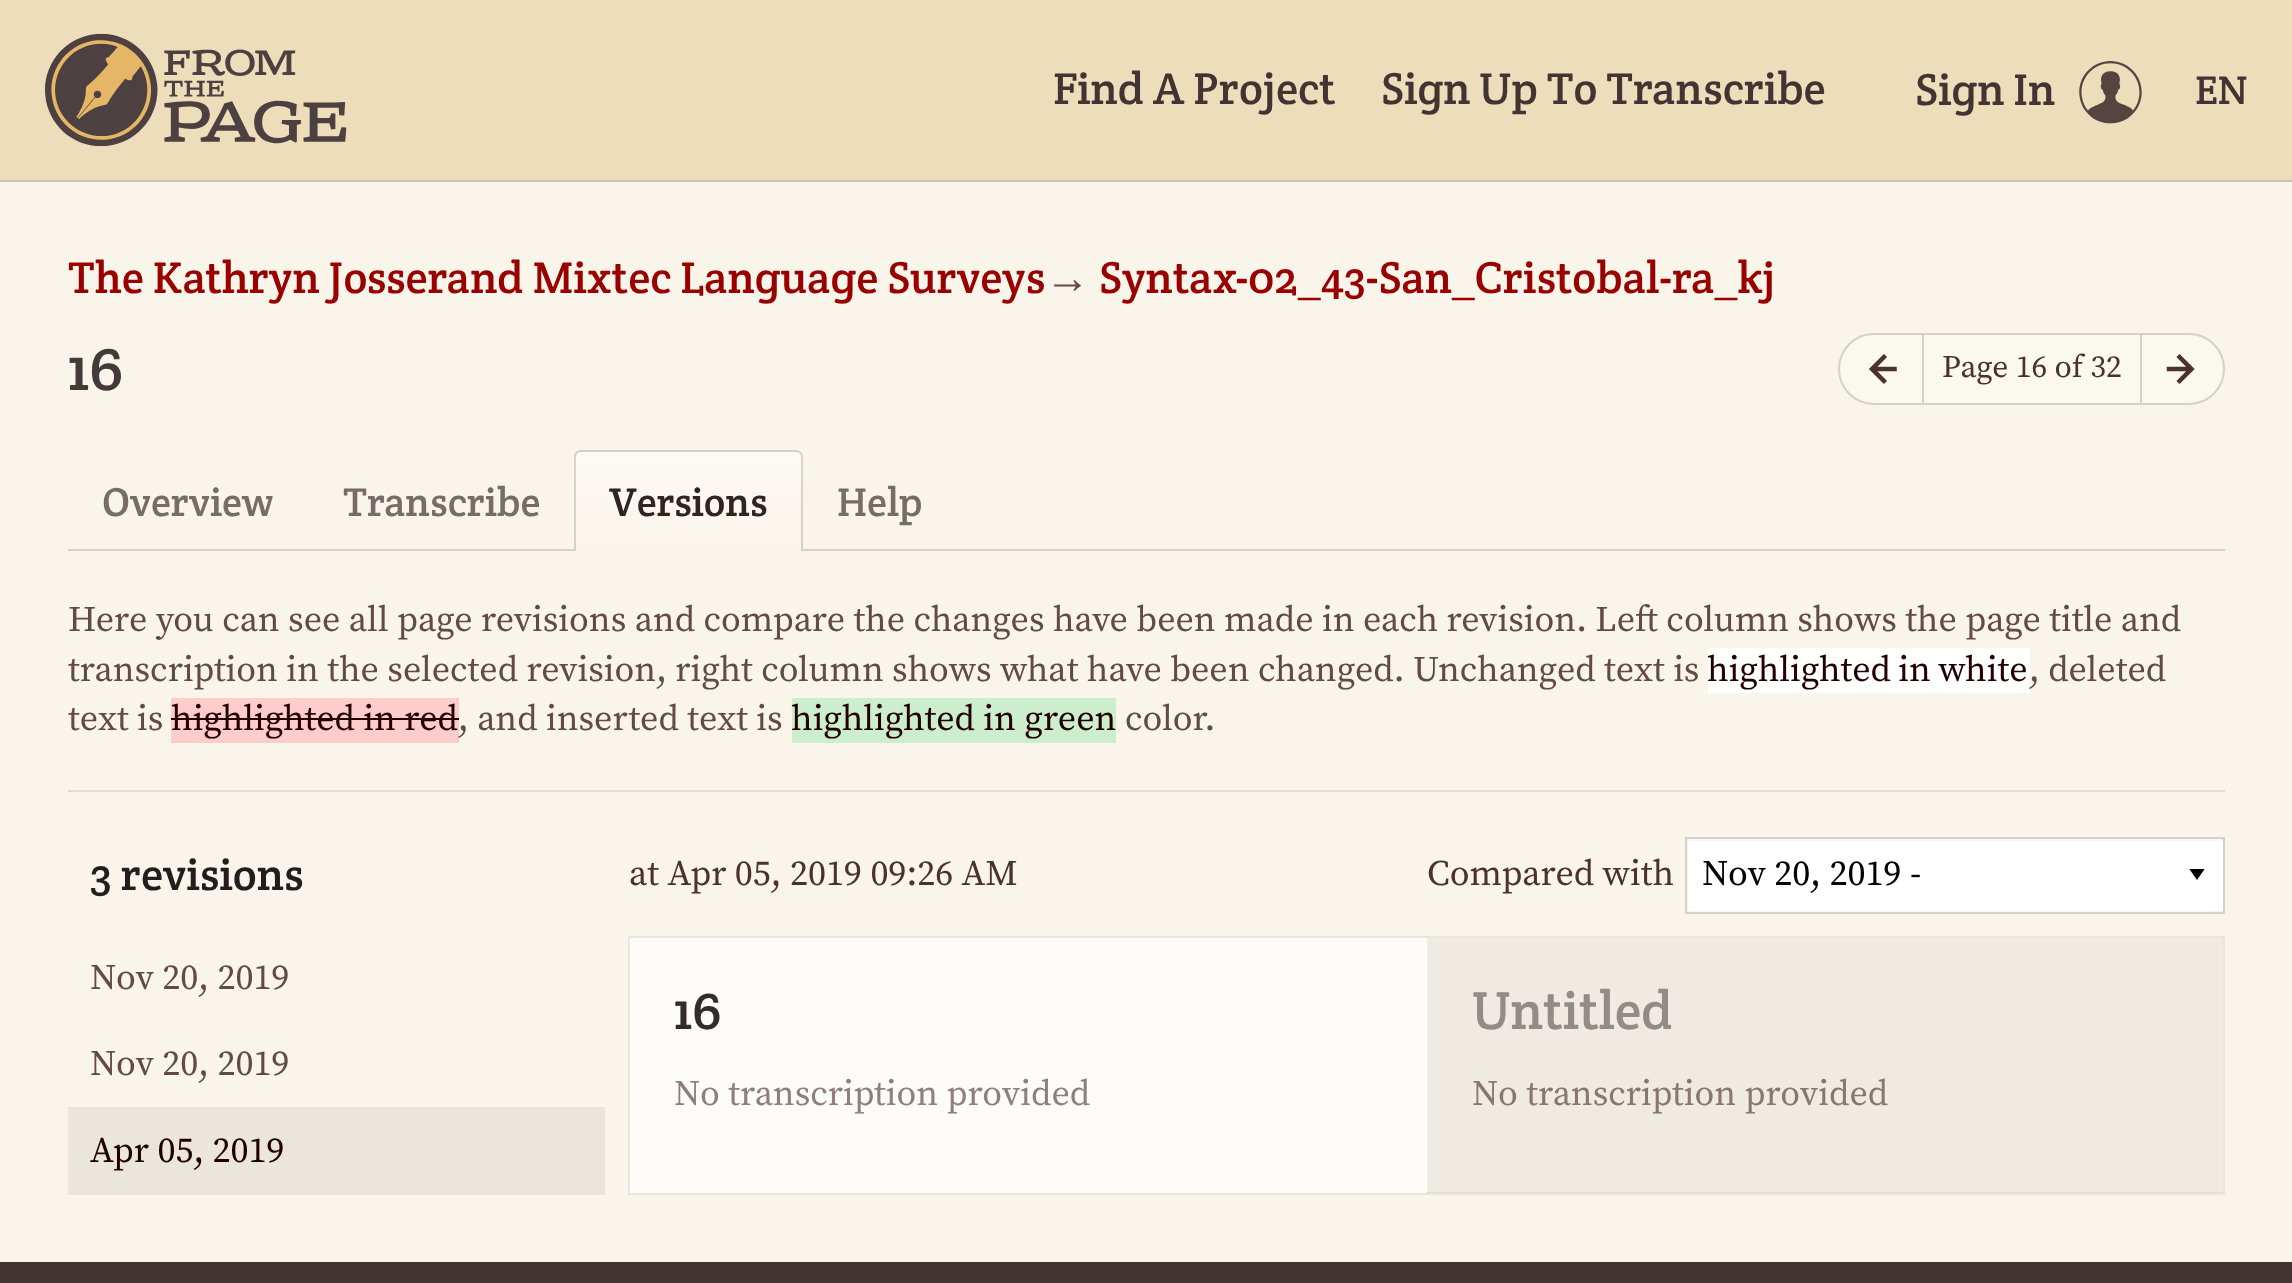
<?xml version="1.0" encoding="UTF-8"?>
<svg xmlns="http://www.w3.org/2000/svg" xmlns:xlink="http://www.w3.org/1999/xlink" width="2292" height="1283">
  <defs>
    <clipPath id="clip1"><path d="M 581 450 h 215 c 4 0 7 3 7 7 v 94 h -229 v -94 c 0 -4 3 -7 7 -7 z" /></clipPath>
    <linearGradient id="g1" gradientUnits="userSpaceOnUse" x1="689" y1="452" x2="689" y2="551"><stop offset="0" stop-color="#fdfaf5" /><stop offset="1" stop-color="#faf5eb" /></linearGradient>
    <clipPath id="clip2"><rect x="2189" y="869" width="34" height="11" /></clipPath>
  </defs>
  <rect width="100%" height="100%" fill="#faf5eb" />
  <path d="M 0 180 v 2 h 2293 v -180 v 178 z" fill="#c8c4bc" />
  <rect width="2292" height="180" fill="#eeddbb" />
  <image x="45" y="33" width="302" height="114" xlink:href="image1.png" />
  <image x="2079" y="61" width="63" height="63" xlink:href="image2.png" />
  <path d="M 1875 335 h 47 v 68 h -47 c -19 0 -34 -15 -34 -34 c 0 -19 15 -34 34 -34 z" fill="#fbf8f0" />
  <path d="M 1874 334 h 49 v 70 h -49 c -19.5 0 -35 -15.5 -35 -35 c 0 -19.5 15.5 -35 35 -35 z" fill="none" stroke="#d5d0c8" stroke-width="2" />
  <image x="1869" y="354" width="28" height="30" xlink:href="image3.png" />
  <rect x="1924" y="335" width="216" height="68" fill="#fbf8f0" />
  <rect x="1924" y="333" width="216" height="2" fill="#d5d0c8" />
  <rect x="1924" y="403" width="216" height="2" fill="#d5d0c8" />
  <path d="M 2141 334 h 48 c 19.5 0 35 15.5 35 35 c 0 19.5 -15.5 35 -35 35 h -48 z" fill="#fbf8f0" stroke="#d5d0c8" stroke-width="2" />
  <image x="2166" y="354" width="29" height="30" xlink:href="image4.png" />
  <rect x="68" y="549" width="2157" height="2" fill="#d5d0c8" />
  <g clip-path="url(#clip1)">
    <rect x="574" y="452" width="229" height="99" fill="url(#g1)" />
  </g>
  <path d="M 580 450 h 216 c 4 0 7 3 7 7 v 94 h -229 v -94 c 0 -4 3 -7 6 -7 z m 0 2 h 216 c 3 0 5 2 5 5 v 94 h -225 v -94 c 0 -3 2 -5 4 -5 z" fill="#000000" fill-opacity="0.15" fill-rule="evenodd" />
  <rect x="68" y="790" width="2157" height="2" fill="#e1ddd4" />
  <rect x="1708" y="648" width="322" height="45" fill="#ffffff" />
  <rect x="171" y="698" width="288" height="45" fill="#ffcccc" />
  <rect x="171" y="718" width="288" height="2" fill="#220000" />
  <rect x="792" y="698" width="324" height="45" fill="#cceecc" />
  <rect x="1688" y="841" width="535" height="70" fill="#ffffff" />
  <g clip-path="url(#clip2)">
    <path d="M 2189 868.5 h 16 l -8 11.5 z" fill="#000000" />
  </g>
  <rect x="1688" y="839" width="535" height="2" fill="#f7f7f7" />
  <rect x="1686" y="838" width="538" height="75" fill="none" stroke="#d5d0c8" stroke-width="2" />
  <rect x="628" y="936" width="2" height="259" fill="#ebe6dd" />
  <rect x="68" y="1107" width="537" height="88" fill="#ebe6dd" />
  <rect x="630" y="938" width="797" height="255" fill="#fefcf9" />
  <rect x="630" y="936" width="797" height="2" fill="#ebe6dd" />
  <rect x="630" y="1193" width="797" height="2" fill="#ebe6dd" />
  <rect x="1427" y="938" width="796" height="255" fill="#f0ebe2" />
  <path d="M 1426 936 h 799 l -2 2 h -797 z" fill="#000000" fill-opacity="0.06" />
  <path d="M 2225 936 v 259 l -2 -3 v -254 z" fill="#000000" fill-opacity="0.06" />
  <path d="M 2225 1195 h -799 v -3 h 797 z" fill="#000000" fill-opacity="0.06" />
  <rect y="1262" width="2292" height="21" fill="#443333" />
  <text x="1053" y="104" style="font-family: Crete Round; font-size: 45px; fill: #443333">Find A Project</text>
  <text x="1381" y="104" style="font-family: Crete Round; font-size: 45px; fill: #443333">Sign Up To Transcribe</text>
  <text x="1915" y="105" style="font-family: Crete Round; font-size: 45px; fill: #443333">Sign In</text>
  <text x="2195" y="104" style="font-family: Crete Round; font-size: 40.5px; fill: #443333">EN</text>
  <text x="68" y="293" style="font-family: Crete Round; font-size: 45px; fill: #990000">The Kathryn Josserand Mixtec Language Surveys</text>
  <text x="1045" y="293" style="font-family: Liberation Serif; font-size: 45px; fill: #634a47">→</text>
  <text x="1099" y="293" style="font-family: Crete Round; font-size: 45px; fill: #990000">Syntax-02_43-San_Cristobal-ra_kj</text>
  <text x="68" y="390" style="font-family: Crete Round; font-size: 63px; fill: #453939">16</text>
  <text x="1942" y="377" style="font-family: Source Serif Pro; font-size: 31.5px; fill: #4d312f">Page 16 of 32</text>
  <text x="102" y="516" style="font-family: Crete Round; font-size: 40.5px; fill: #796c68">Overview</text>
  <text x="343" y="516" style="font-family: Crete Round; font-size: 40.5px; fill: #796c68">Transcribe</text>
  <text x="609" y="516" style="font-family: Crete Round; font-size: 40.5px; fill: #332222">Versions</text>
  <text x="837" y="516" style="font-family: Crete Round; font-size: 40.5px; fill: #796c68">Help</text>
  <text x="68" y="631" style="font-family: Source Serif Pro; font-size: 36px; fill: #634a47">Here you can see all page revisions and compare the changes have been made in each revision. Left column shows the page title and</text>
  <text x="68" y="681" style="font-family: Source Serif Pro; font-size: 36px; fill: #634a47">transcription in the selected revision, right column shows what have been changed. Unchanged text is</text>
  <text x="1707" y="681" word-spacing="-1" style="font-family: Source Serif Pro; font-size: 36px; fill: #220000">highlighted in white</text>
  <text x="2029" y="681" style="font-family: Source Serif Pro; font-size: 36px; fill: #634a47">, deleted</text>
  <text x="68" y="730" style="font-family: Source Serif Pro; font-size: 36px; fill: #634a47">text is</text>
  <text x="171" y="730" style="font-family: Source Serif Pro; font-size: 36px; fill: #220000">highlighted in red</text>
  <text x="458" y="730" style="font-family: Source Serif Pro; font-size: 36px; fill: #634a47">, and inserted text is</text>
  <text x="791" y="730" style="font-family: Source Serif Pro; font-size: 36px; fill: #220000">highlighted in green</text>
  <text x="1125" y="730" style="font-family: Source Serif Pro; font-size: 36px; fill: #634a47">color.</text>
  <text x="90" y="890" style="font-family: Crete Round; font-size: 45px; fill: #231d1d">3 revisions</text>
  <text x="629" y="885" style="font-family: Source Serif Pro; font-size: 36px; fill: #4d312f">at Apr 05, 2019 09:26 AM</text>
  <text x="1427" y="885" style="font-family: Source Serif Pro; font-size: 36px; fill: #4d312f">Compared with</text>
  <text x="1702" y="885" style="font-family: Source Serif Pro; font-size: 36px; fill: #000000">Nov 20, 2019 -</text>
  <text x="90" y="989" style="font-family: Source Serif Pro; font-size: 36px; fill: #634a47">Nov 20, 2019</text>
  <text x="90" y="1075" style="font-family: Source Serif Pro; font-size: 36px; fill: #634a47">Nov 20, 2019</text>
  <text x="90" y="1162" style="font-family: Source Serif Pro; font-size: 36px; fill: #220000">Apr 05, 2019</text>
  <text x="674" y="1029" style="font-family: Crete Round; font-size: 54px; fill: #342b2b">16</text>
  <text x="674" y="1105" style="font-family: Source Serif Pro; font-size: 36px; fill: #907e7d">No transcription provided</text>
  <text x="1472" y="1029" style="font-family: Crete Round; font-size: 54px; fill: #928b87">Untitled</text>
  <text x="1472" y="1105" style="font-family: Source Serif Pro; font-size: 36px; fill: #897671">No transcription provided</text>
</svg>
